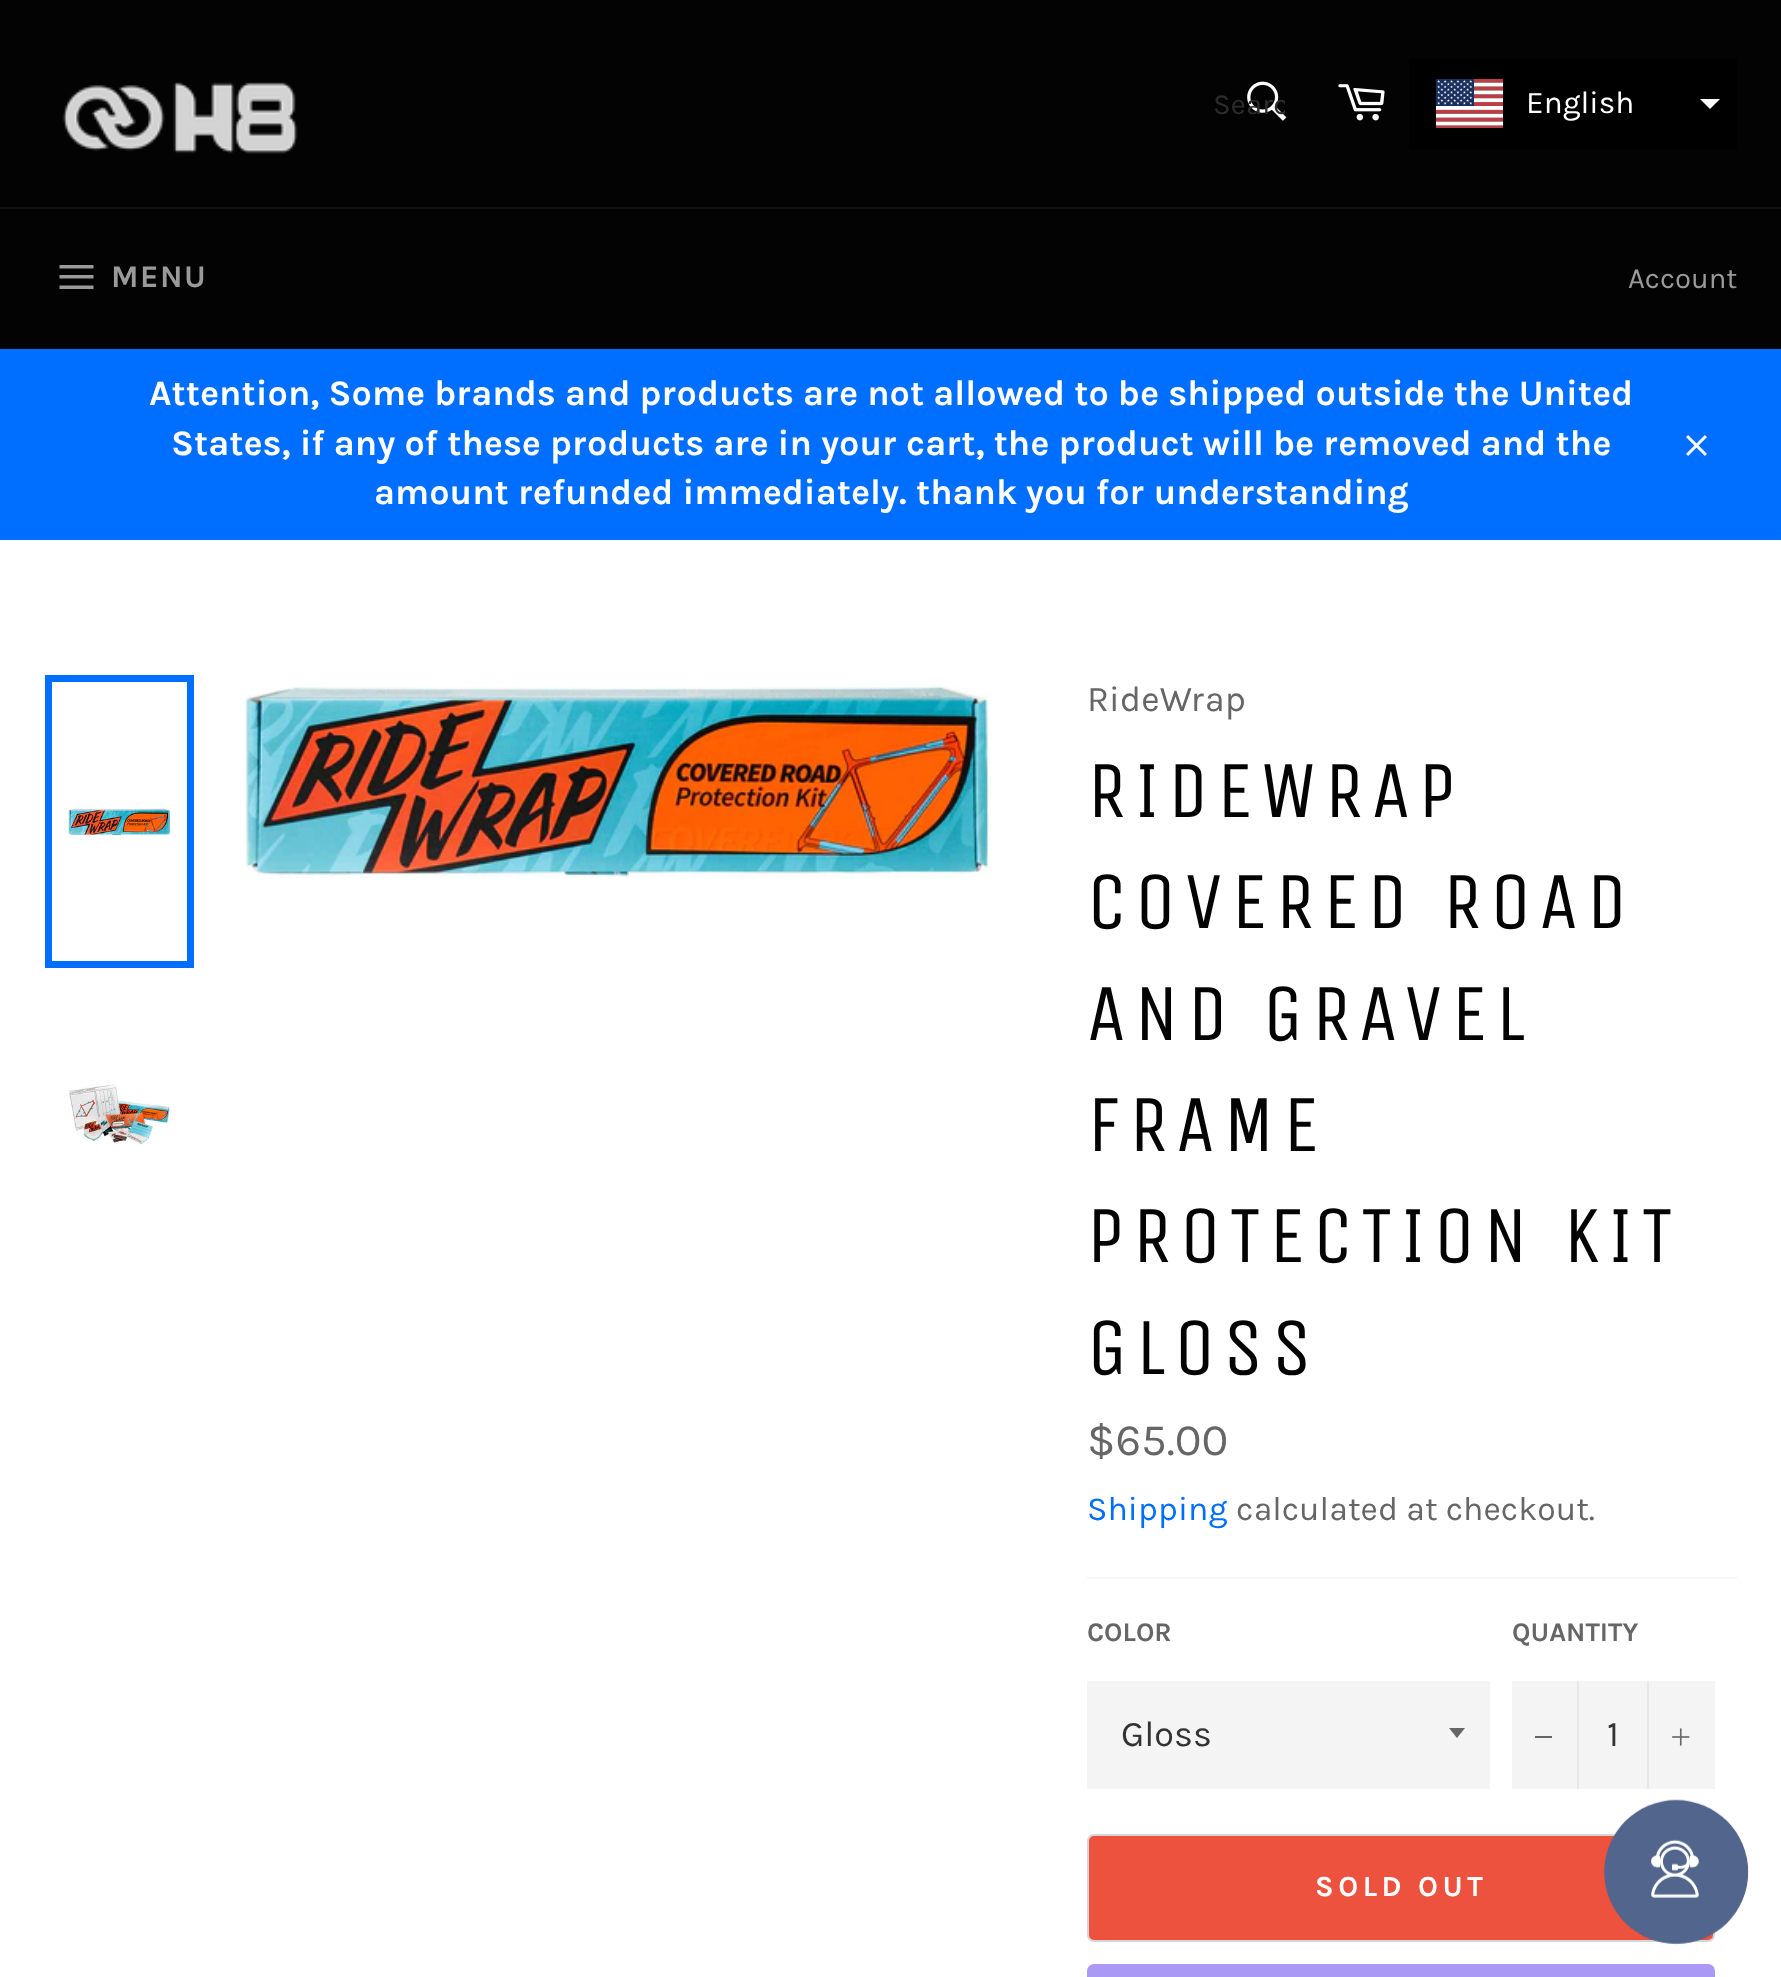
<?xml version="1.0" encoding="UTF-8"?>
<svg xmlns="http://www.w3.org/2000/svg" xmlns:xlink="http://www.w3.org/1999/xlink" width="1781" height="1977">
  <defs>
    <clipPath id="clip1"><rect x="1699" y="99" width="22" height="11" /></clipPath>
    <clipPath id="clip2"><rect x="1213" y="88" width="72" height="34" /></clipPath>
  </defs>
  <rect width="100%" height="100%" fill="#030303" />
  <image x="62" y="82" width="236" height="72" xlink:href="image1.png" />
  <image x="1247" y="81" width="40" height="40" xlink:href="image2.png" />
  <image x="1338" y="84" width="47" height="37" xlink:href="image3.png" />
  <rect x="1409" y="59" width="328" height="90" fill="#000000" />
  <image x="1436" y="79" width="67" height="49" xlink:href="image4.png" />
  <g clip-path="url(#clip1)">
    <path d="M 1721 98 l -11 11 l -11 -11 z" fill="#ffffff" fill-rule="evenodd" />
  </g>
  <rect y="207" width="1781" height="2" fill="#101010" />
  <path d="M 59.5 275 h 34 v 3.5 h -34 z m 0 -10 h 34 v 3.5 h -34 z m 0 20.5 h 34 v 3.5 h -34 z" fill="#9a9a9a" />
  <rect y="349" width="1781" height="191" fill="#006eff" />
  <image x="1686" y="435" width="21" height="21" xlink:href="image5.png" />
  <rect y="540" width="1781" height="1437" fill="#ffffff" />
  <image x="67" y="807" width="104" height="29" xlink:href="image6.png" />
  <rect x="48.5" y="678.5" width="142" height="286" fill="none" stroke="#006eff" stroke-width="7" />
  <image x="68" y="1084" width="103" height="61" xlink:href="image7.png" />
  <image x="244" y="686" width="747" height="193" xlink:href="image8.png" />
  <rect x="1087" y="1577" width="650" height="2" fill="#f7f7f7" />
  <rect x="1087" y="1681" width="403" height="108" fill="#f4f4f4" />
  <path d="M 1449 1728 l 8 10 l 8 -10 z" fill="#666666" />
  <rect x="1512" y="1681" width="203" height="108" fill="#f4f4f4" />
  <rect x="1577" y="1681" width="2" height="108" fill="#e7e7e7" />
  <rect x="1535" y="1736" width="17" height="2" fill="#666666" />
  <rect x="1647" y="1681" width="2" height="108" fill="#e7e7e7" />
  <image x="1672" y="1728" width="18" height="18" xlink:href="image9.png" />
  <rect x="1088" y="1835" width="626" height="106" rx="6" fill="#ec523e" stroke="#d5d5d5" stroke-width="2" />
  <rect x="1087" y="1964" width="628" height="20" rx="7" fill="#aa99f5" />
  <image x="1604" y="1799" width="145" height="146" xlink:href="image10.png" />
  <g clip-path="url(#clip2)">
    <text x="1213" y="114" style="font-family: Karla; font-size: 29.25px; fill: #2c2c2c">Searc</text>
  </g>
  <text x="1526" y="113" style="font-family: Karla; font-size: 31.5px; fill: #ffffff">English</text>
  <text x="111" y="287" style="font-family: Karla; font-size: 31.5px; font-weight: bold; letter-spacing: 1.5px; fill: #9a9a9a">MENU</text>
  <text x="1628" y="288" style="font-family: Karla; font-size: 29.25px; fill: #9a9a9a">Account</text>
  <text x="149" y="405" style="font-family: Karla; font-size: 36px; font-weight: bold; fill: #ffffff">Attention, Some brands and products are not allowed to be shipped outside the United</text>
  <text x="171" y="455" style="font-family: Karla; font-size: 36px; font-weight: bold; fill: #ffffff">States, if any of these products are in your cart, the product will be removed and the</text>
  <text x="374" y="504" style="font-family: Karla; font-size: 36px; font-weight: bold; fill: #ffffff">amount refunded immediately. thank you for understanding</text>
  <text x="1087" y="711" style="font-family: Karla; font-size: 36px; fill: #666666">RideWrap</text>
  <text x="1087" y="817" style="font-family: Unica One; font-size: 81px; letter-spacing: 8.1px; fill: #030303">RIDEWRAP</text>
  <text x="1087" y="928" style="font-family: Unica One; font-size: 81px; letter-spacing: 8.1px; fill: #030303">COVERED ROAD</text>
  <text x="1087" y="1040" style="font-family: Unica One; font-size: 81px; letter-spacing: 8.1px; fill: #030303">AND GRAVEL</text>
  <text x="1087" y="1151" style="font-family: Unica One; font-size: 81px; letter-spacing: 8.1px; fill: #030303">FRAME</text>
  <text x="1087" y="1262" style="font-family: Unica One; font-size: 81px; letter-spacing: 8.1px; fill: #030303">PROTECTION KIT</text>
  <text x="1087" y="1374" style="font-family: Unica One; font-size: 81px; letter-spacing: 8.1px; fill: #030303">GLOSS</text>
  <text x="1087" y="1455" style="font-family: Karla; font-size: 45px; fill: #666666">$65.00</text>
  <text x="1087" y="1520" style="font-family: Karla; font-size: 33.75px; fill: #006eff">Shipping</text>
  <text x="1236" y="1520" style="font-family: Karla; font-size: 33.75px; fill: #666666">calculated at checkout.</text>
  <text x="1087" y="1641" style="font-family: Karla; font-size: 27px; font-weight: bold; fill: #666666">COLOR</text>
  <text x="1121" y="1746" style="font-family: Karla; font-size: 36px; fill: #333333">Gloss</text>
  <text x="1512" y="1641" style="font-family: Karla; font-size: 27px; font-weight: bold; fill: #666666">QUANTITY</text>
  <text x="1607" y="1746" style="font-family: Karla; font-size: 36px; fill: #333333">1</text>
  <text x="1315" y="1896" style="font-family: Karla; font-size: 29.25px; font-weight: bold; letter-spacing: 4.5px; fill: #ffffff">SOLD OUT</text>
</svg>
